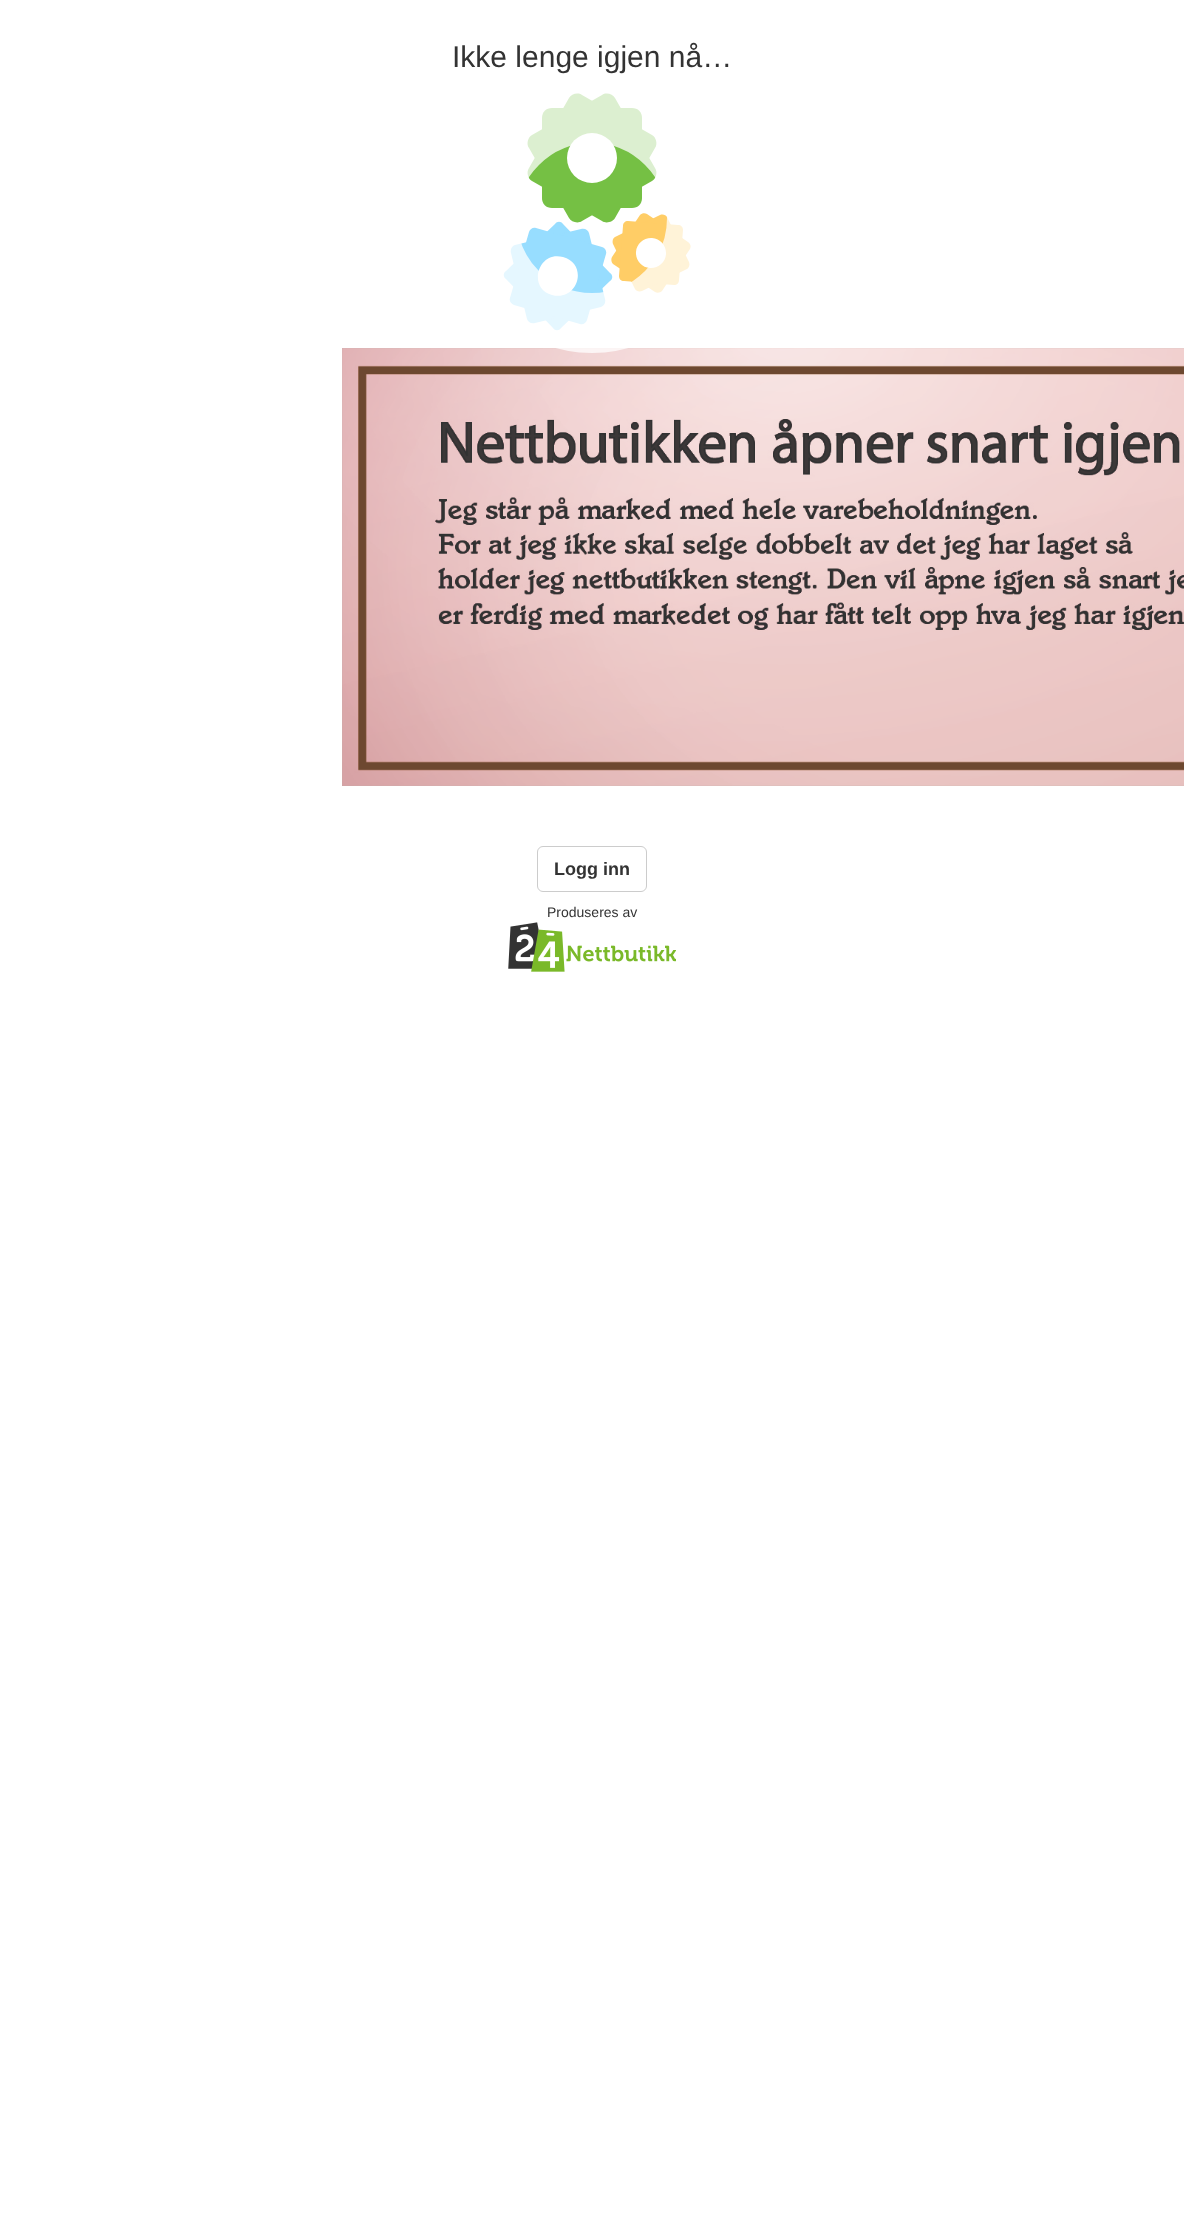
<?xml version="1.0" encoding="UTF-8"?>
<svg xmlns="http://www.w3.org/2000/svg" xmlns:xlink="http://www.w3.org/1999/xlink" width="1184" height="2234">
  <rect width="100%" height="100%" fill="#ffffff" />
  <path d="M 582 95 l 70 40 c 4 2 6 9 3 13 l -40 70 c -2 4 -9 6 -13 3 l -70 -40 c -4 -2 -6 -9 -3 -13 l 40 -70 c 2 -4 9 -6 13 -3 z" fill="#75c044" />
  <path d="M 615 98 l 40 70 c 3 4 1 11 -3 13 l -70 40 c -4 3 -11 1 -13 -3 l -40 -70 c -3 -4 -1 -11 3 -13 l 70 -40 c 4 -3 11 -1 13 3 z" fill="#75c044" />
  <path d="M 642 118 v 80 c 0 6 -4 10 -10 10 h -80 c -6 0 -10 -4 -10 -10 v -80 c 0 -6 4 -10 10 -10 h 80 c 6 0 10 4 10 10 z" fill="#75c044" />
  <circle cx="592" cy="158" r="25" fill="#ffffff" />
  <path d="M 563 224 l 47 49 c 3 2 3 6 0 8 l -49 47 c -2 3 -6 3 -8 0 l -47 -49 c -3 -2 -3 -6 0 -8 l 49 -47 c 2 -3 6 -3 8 0 z" fill="#97ddff" />
  <path d="M 589 233 l 16 66 c 1 4 -1 7 -4 8 l -66 16 c -4 1 -7 -1 -8 -4 l -16 -66 c -1 -4 1 -7 4 -8 l 66 -16 c 4 -1 7 1 8 4 z" fill="#97ddff" />
  <path d="M 606 254 l -19 66 c -1 3 -4 5 -7 4 l -66 -19 c -3 -1 -5 -4 -4 -7 l 19 -66 c 1 -3 4 -5 7 -4 l 66 19 c 3 1 5 4 4 7 z" fill="#97ddff" />
  <path d="M 563 257 c 26 7 15 45 -11 38 c -25 -7 -14 -45 11 -38 z" fill="#ffffff" />
  <path d="M 647 214 l 41 28 c 3 2 3 5 2 7 l -28 42 c -2 2 -5 2 -7 1 l -42 -28 c -2 -2 -2 -5 -1 -7 l 28 -42 c 2 -2 5 -2 7 -1 z" fill="#ffcd66" />
  <path d="M 667 217 l 22 45 c 1 3 0 6 -2 7 l -45 22 c -3 1 -6 0 -7 -2 l -22 -45 c -1 -3 0 -6 2 -7 l 45 -22 c 3 -1 6 0 7 2 z" fill="#ffcd66" />
  <path d="M 683 230 l -4 50 c 0 3 -2 5 -5 5 l -50 -4 c -3 0 -5 -2 -5 -5 l 4 -50 c 0 -3 2 -5 5 -5 l 50 4 c 3 0 5 2 5 5 z" fill="#ffcd66" />
  <path d="M 652 238 c 8.5 0.5 14.5 8 14 16 c -0.5 8.5 -8 14.5 -16 14 c -8.5 -0.5 -14.5 -8 -14 -16 c 0.5 -8.5 8 -14.5 16 -14 z" fill="#ffffff" />
  <image x="342" y="348" width="842" height="438" xlink:href="image1.png" />
  <circle cx="592" cy="218" r="105" fill="none" stroke="#ffffff" stroke-opacity="0.75" stroke-width="60" />
  <rect x="537.5" y="846.5" width="109" height="45" rx="5.5" fill="none" stroke="#cccccc" />
  <image x="508" y="922" width="168" height="50" xlink:href="image2.png" />
  <text x="452" y="67" style="font-family: Liberation Sans; font-size: 30px; fill: #333333">Ikke lenge igjen nå…</text>
  <text x="554" y="875" style="font-family: Liberation Sans; font-size: 18px; font-weight: bold; fill: #333333">Logg inn</text>
  <text x="547" y="917" style="font-family: Liberation Sans; font-size: 14px; fill: #333333">Produseres av</text>
</svg>
